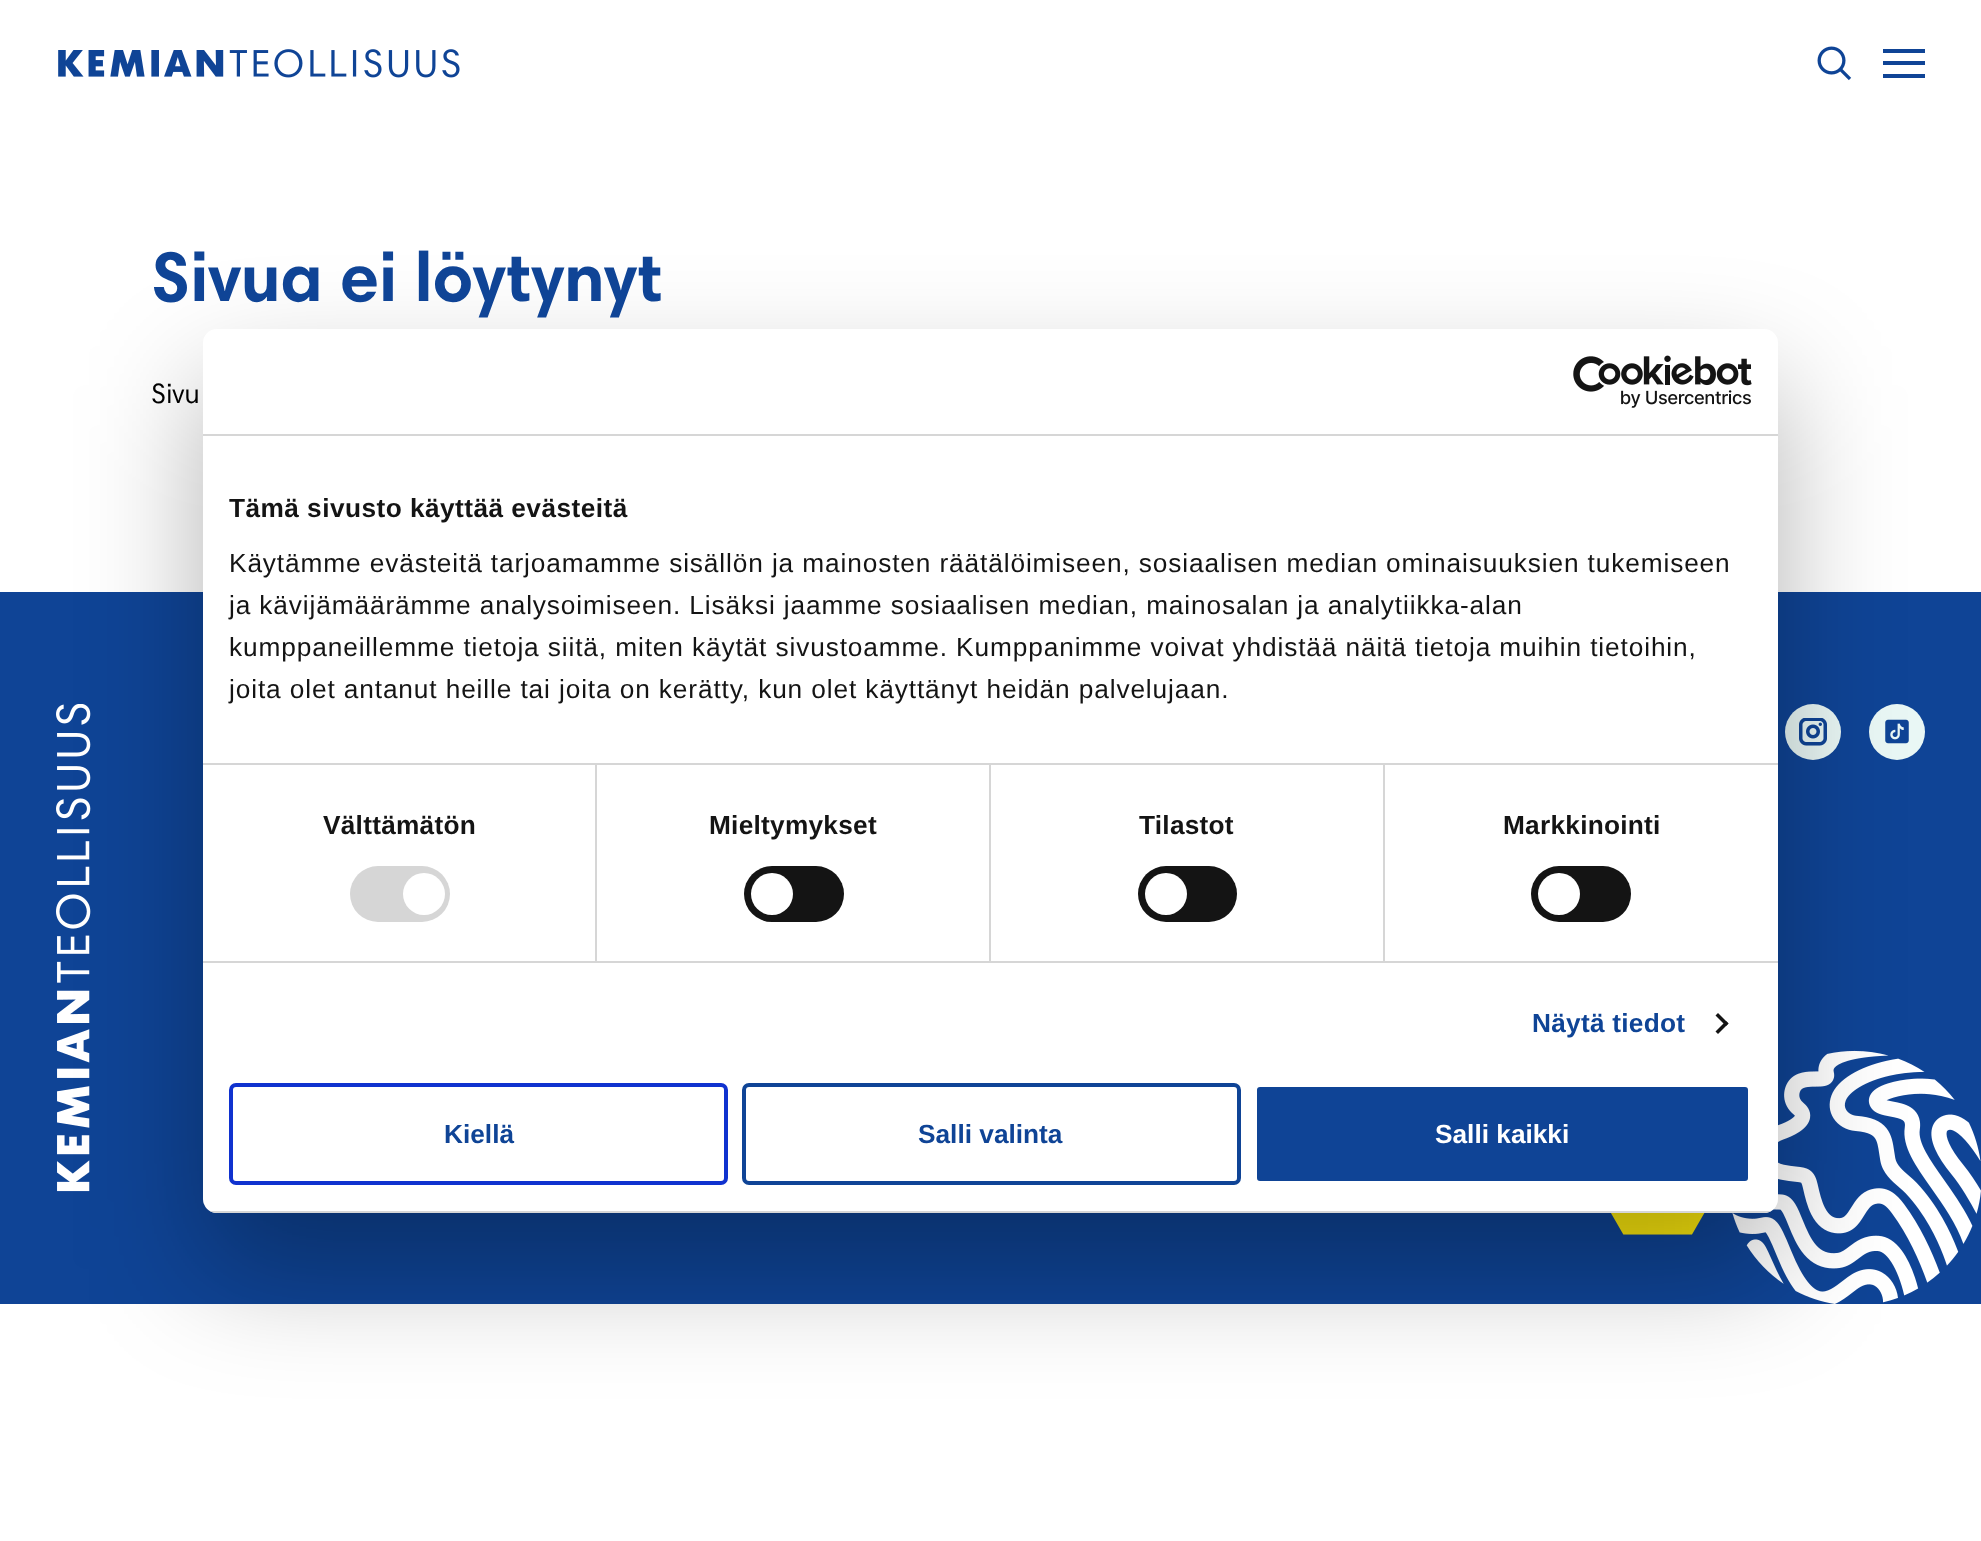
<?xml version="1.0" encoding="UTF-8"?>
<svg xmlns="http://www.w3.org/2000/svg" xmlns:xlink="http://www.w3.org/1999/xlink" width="1981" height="1541">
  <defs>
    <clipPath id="clip1"><rect x="203" y="329" width="1575" height="884" rx="14" /></clipPath>
  </defs>
  <rect width="100%" height="100%" fill="#ffffff" />
  <image x="58" y="49" width="402" height="29" xlink:href="image1.png" />
  <image x="1817" y="46" width="35" height="35" xlink:href="image2.png" />
  <rect x="1883" y="49" width="42" height="4" fill="#0f4496" />
  <rect x="1883" y="61" width="42" height="4" fill="#0f4496" />
  <rect x="1883" y="74" width="42" height="4" fill="#0f4496" />
  <rect y="592" width="1981" height="712" fill="#0f4496" />
  <image x="56" y="704" width="35" height="488" xlink:href="image4.png" />
  <circle cx="1813" cy="732" r="28" fill="#e9f7f5" />
  <image x="1799" y="718" width="28" height="28" xlink:href="image5.png" />
  <circle cx="1897" cy="732" r="28" fill="#e9f7f5" />
  <image x="1885" y="719" width="24" height="25" xlink:href="image6.png" />
  <image x="1611" y="1050" width="370" height="254" xlink:href="image7.png" />
  <rect x="203" y="385" width="1575" height="884" rx="14" fill="#000000" fill-opacity="0.3" filter="blur(59.5px)" />
  <rect x="203" y="329" width="1575" height="884" rx="14" fill="#ffffff" />
  <rect x="203" y="434" width="1575" height="2" fill="#d6d6d6" />
  <image x="1573" y="355" width="179" height="53" xlink:href="image3.png" />
  <rect x="203" y="763" width="1575" height="2" fill="#d6d6d6" />
  <rect x="203" y="961" width="1575" height="2" fill="#d6d6d6" />
  <rect x="595" y="765" width="2" height="196" fill="#d6d6d6" />
  <rect x="350" y="866" width="100" height="56" rx="28" fill="#d6d6d6" />
  <circle cx="424" cy="894" r="21" fill="#ffffff" />
  <rect x="989" y="765" width="2" height="196" fill="#d6d6d6" />
  <rect x="744" y="866" width="100" height="56" rx="28" fill="#141414" />
  <circle cx="772" cy="894" r="21" fill="#ffffff" />
  <rect x="1383" y="765" width="2" height="196" fill="#d6d6d6" />
  <rect x="1138" y="866" width="99" height="56" rx="28" fill="#141414" />
  <circle cx="1166" cy="894" r="21" fill="#ffffff" />
  <rect x="1531" y="866" width="100" height="56" rx="28" fill="#141414" />
  <circle cx="1559" cy="894" r="21" fill="#ffffff" />
  <path d="M 1718 1013 l 10.5 10.5 l -2.5 2.5 l -10.5 -10.5 z" fill="#141414" />
  <path d="M 1726 1021 l 2.5 2.5 l -10.5 10.5 l -2.5 -2.5 z" fill="#141414" />
  <g clip-path="url(#clip1)">
    <rect x="203" y="1211" width="1575" height="2" fill="#d6d6d6" />
  </g>
  <rect x="231" y="1085" width="495" height="98" rx="5" fill="none" stroke="#1032cf" stroke-width="4" />
  <rect x="744" y="1085" width="495" height="98" rx="5" fill="none" stroke="#0f4496" stroke-width="4" />
  <rect x="1255" y="1085" width="495" height="98" rx="5" fill="#0f4496" stroke="#ffffff" stroke-width="4" />
  <text x="151" y="301" style="font-family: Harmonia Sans; font-size: 70px; fill: #0f4496">Sivua ei löytynyt</text>
  <text x="151" y="403" style="font-family: 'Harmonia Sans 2'; font-size: 28px; fill: #000000">Sivu</text>
  <text x="229" y="517" style="font-family: Liberation Sans; font-size: 26.25px; font-weight: bold; letter-spacing: 0.45px; fill: #141414">Tämä sivusto käyttää evästeitä</text>
  <text x="229" y="572" style="font-family: Liberation Sans; font-size: 26.25px; letter-spacing: 0.88px; fill: #141414">Käytämme evästeitä tarjoamamme sisällön ja mainosten räätälöimiseen, sosiaalisen median ominaisuuksien tukemiseen</text>
  <text x="229" y="614" style="font-family: Liberation Sans; font-size: 26.25px; letter-spacing: 0.88px; fill: #141414">ja kävijämäärämme analysoimiseen. Lisäksi jaamme sosiaalisen median, mainosalan ja analytiikka-alan</text>
  <text x="229" y="656" style="font-family: Liberation Sans; font-size: 26.25px; letter-spacing: 0.88px; fill: #141414">kumppaneillemme tietoja siitä, miten käytät sivustoamme. Kumppanimme voivat yhdistää näitä tietoja muihin tietoihin,</text>
  <text x="229" y="698" style="font-family: Liberation Sans; font-size: 26.25px; letter-spacing: 0.88px; fill: #141414">joita olet antanut heille tai joita on kerätty, kun olet käyttänyt heidän palvelujaan.</text>
  <text x="323" y="834" style="font-family: Liberation Sans; font-size: 26.25px; font-weight: bold; letter-spacing: 0.25px; fill: #141414">Välttämätön</text>
  <text x="709" y="834" style="font-family: Liberation Sans; font-size: 26.25px; font-weight: bold; letter-spacing: 0.25px; fill: #141414">Mieltymykset</text>
  <text x="1139" y="834" style="font-family: Liberation Sans; font-size: 26.25px; font-weight: bold; letter-spacing: 0.25px; fill: #141414">Tilastot</text>
  <text x="1503" y="834" style="font-family: Liberation Sans; font-size: 26.25px; font-weight: bold; letter-spacing: 0.25px; fill: #141414">Markkinointi</text>
  <text x="1532" y="1032" style="font-family: Liberation Sans; font-size: 26.25px; font-weight: bold; letter-spacing: 0.25px; fill: #0f4496">Näytä tiedot</text>
  <text x="444" y="1143" style="font-family: Liberation Sans; font-size: 26.25px; font-weight: bold; fill: #0f4496">Kiellä</text>
  <text x="918" y="1143" style="font-family: Liberation Sans; font-size: 26.25px; font-weight: bold; fill: #0f4496">Salli valinta</text>
  <text x="1435" y="1143" style="font-family: Liberation Sans; font-size: 26.25px; font-weight: bold; fill: #ffffff">Salli kaikki</text>
</svg>
